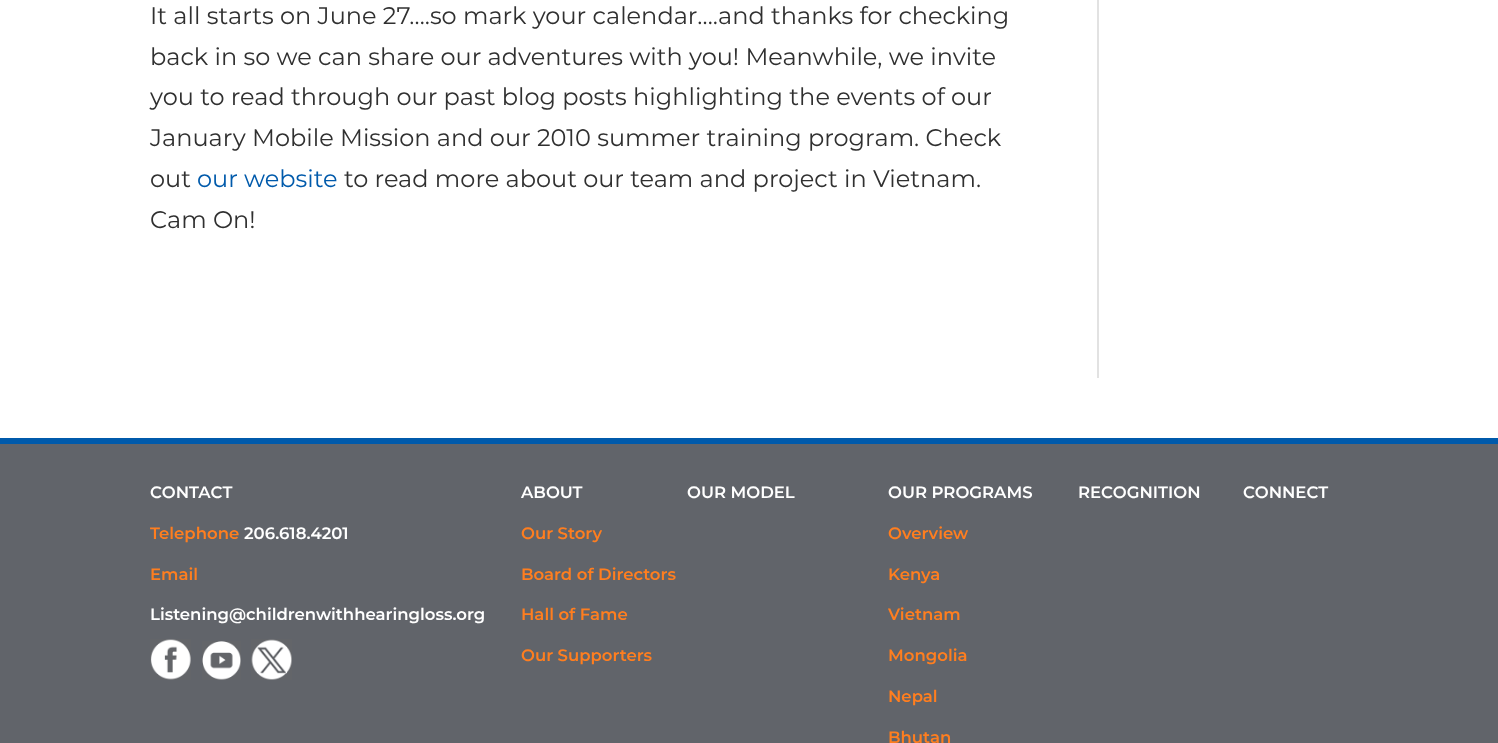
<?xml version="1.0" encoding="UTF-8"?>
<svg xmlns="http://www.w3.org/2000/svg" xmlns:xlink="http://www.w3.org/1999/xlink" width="1498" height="743">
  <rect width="100%" height="100%" fill="#ffffff" />
  <rect x="1097" width="2" height="378" fill="#e2e2e2" />
  <rect y="444" width="1498" height="299" fill="#61646a" />
  <rect y="438" width="1498" height="6" fill="#005aab" />
  <image x="150" y="639" width="41" height="41" xlink:href="image1.png" />
  <image x="202" y="641" width="39" height="39" xlink:href="image2.png" />
  <image x="251" y="639" width="41" height="41" xlink:href="image3.png" />
  <text x="150" y="24" style="font-family: Montserrat; font-size: 24px; fill: #303030">It all starts on June 27….so mark your calendar….and thanks for checking</text>
  <text x="150" y="65" style="font-family: Montserrat; font-size: 24px; fill: #303030">back in so we can share our adventures with you! Meanwhile, we invite</text>
  <text x="150" y="105" style="font-family: Montserrat; font-size: 24px; fill: #303030">you to read through our past blog posts highlighting the events of our</text>
  <text x="150" y="146" style="font-family: Montserrat; font-size: 24px; fill: #303030">January Mobile Mission and our 2010 summer training program. Check</text>
  <text x="150" y="187" style="font-family: Montserrat; font-size: 24px; fill: #303030">out</text>
  <text x="197" y="187" style="font-family: Montserrat; font-size: 24px; fill: #005aab">our website</text>
  <text x="344" y="187" style="font-family: Montserrat; font-size: 24px; fill: #303030">to read more about our team and project in Vietnam.</text>
  <text x="150" y="228" style="font-family: Montserrat; font-size: 24px; fill: #303030">Cam On!</text>
  <text x="150" y="498" style="font-family: Montserrat; font-size: 16.5px; font-weight: 600; fill: #ffffff">CONTACT</text>
  <text x="150" y="539" style="font-family: Montserrat; font-size: 16.5px; font-weight: 600; fill: #ff7e1f">Telephone</text>
  <text x="244" y="539" style="font-family: Montserrat; font-size: 16.5px; font-weight: 600; fill: #ffffff">206.618.4201</text>
  <text x="150" y="580" style="font-family: Montserrat; font-size: 16.5px; font-weight: 600; fill: #ff7e1f">Email</text>
  <text x="150" y="620" style="font-family: Montserrat; font-size: 16.5px; font-weight: 600; fill: #ffffff">Listening@childrenwithhearingloss.org</text>
  <text x="521" y="498" style="font-family: Montserrat; font-size: 16.5px; font-weight: 600; fill: #ffffff">ABOUT</text>
  <text x="521" y="539" style="font-family: Montserrat; font-size: 16.5px; font-weight: 600; fill: #ff7e1f">Our Story</text>
  <text x="521" y="580" style="font-family: Montserrat; font-size: 16.5px; font-weight: 600; fill: #ff7e1f">Board of Directors</text>
  <text x="521" y="620" style="font-family: Montserrat; font-size: 16.5px; font-weight: 600; fill: #ff7e1f">Hall of Fame</text>
  <text x="521" y="661" style="font-family: Montserrat; font-size: 16.5px; font-weight: 600; fill: #ff7e1f">Our Supporters</text>
  <text x="687" y="498" style="font-family: Montserrat; font-size: 16.5px; font-weight: 600; fill: #ffffff">OUR MODEL</text>
  <text x="888" y="498" style="font-family: Montserrat; font-size: 16.5px; font-weight: 600; fill: #ffffff">OUR PROGRAMS</text>
  <text x="888" y="539" style="font-family: Montserrat; font-size: 16.5px; font-weight: 600; fill: #ff7e1f">Overview</text>
  <text x="888" y="580" style="font-family: Montserrat; font-size: 16.5px; font-weight: 600; fill: #ff7e1f">Kenya</text>
  <text x="888" y="620" style="font-family: Montserrat; font-size: 16.5px; font-weight: 600; fill: #ff7e1f">Vietnam</text>
  <text x="888" y="661" style="font-family: Montserrat; font-size: 16.5px; font-weight: 600; fill: #ff7e1f">Mongolia</text>
  <text x="888" y="702" style="font-family: Montserrat; font-size: 16.5px; font-weight: 600; fill: #ff7e1f">Nepal</text>
  <text x="888" y="743" style="font-family: Montserrat; font-size: 16.5px; font-weight: 600; fill: #ff7e1f">Bhutan</text>
  <text x="1078" y="498" style="font-family: Montserrat; font-size: 16.5px; font-weight: 600; fill: #ffffff">RECOGNITION</text>
  <text x="1243" y="498" style="font-family: Montserrat; font-size: 16.5px; font-weight: 600; fill: #ffffff">CONNECT</text>
</svg>
